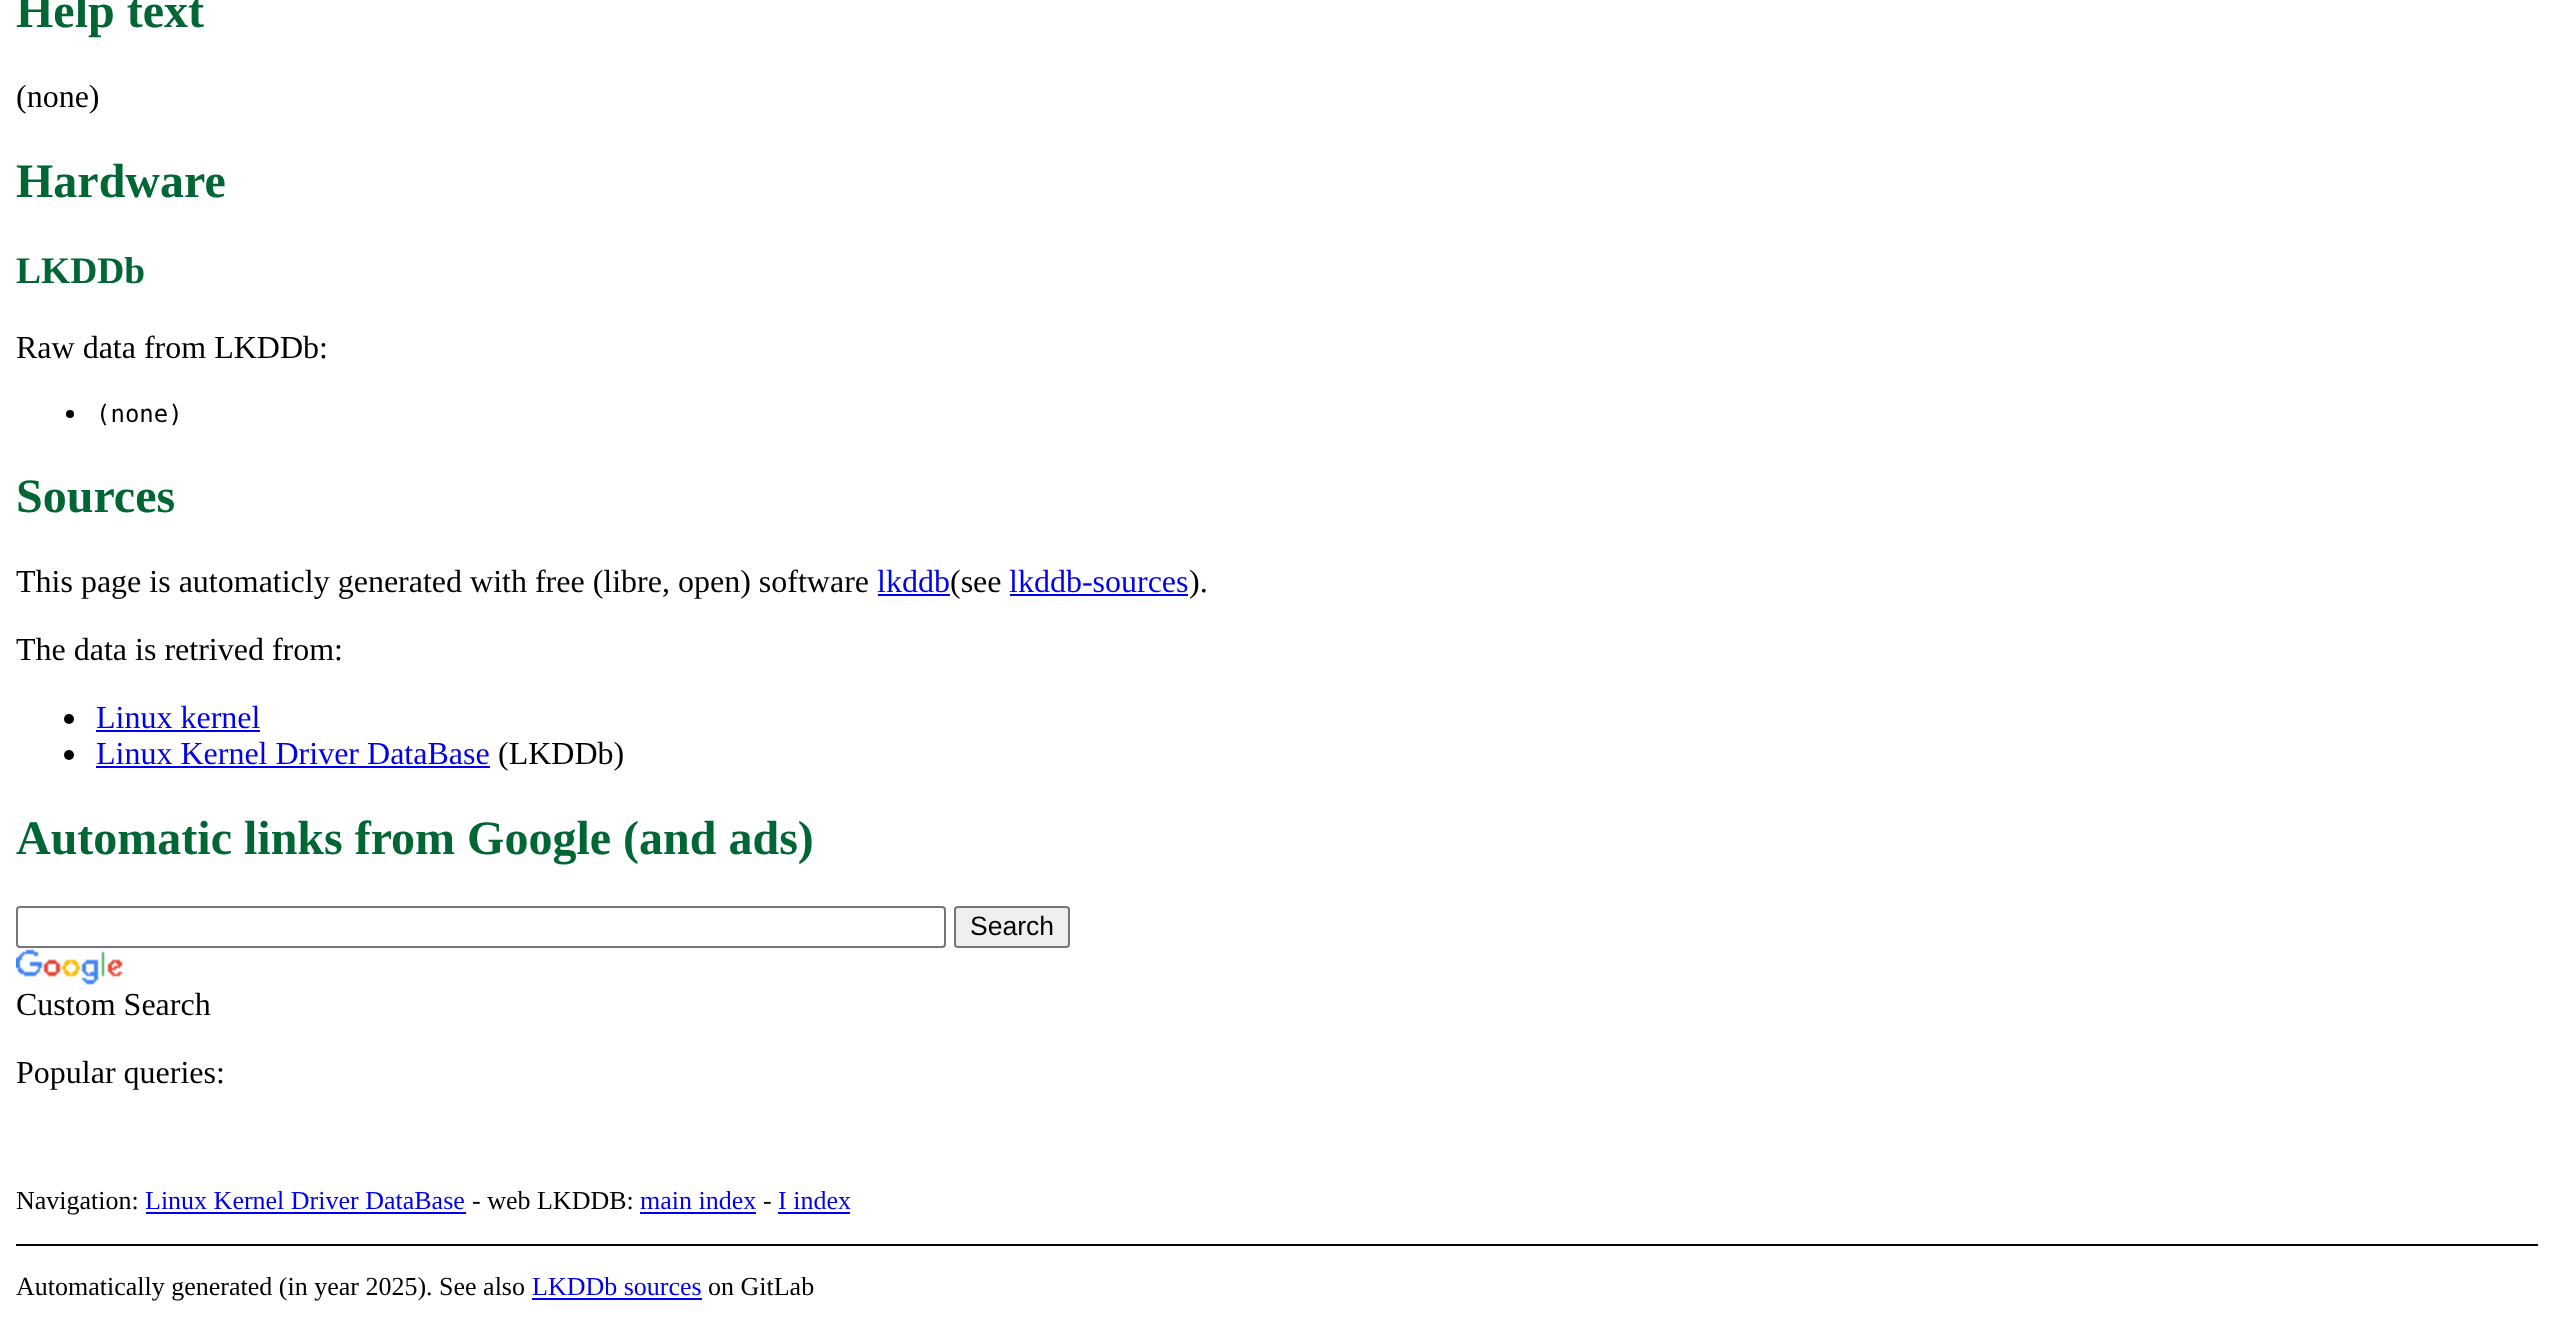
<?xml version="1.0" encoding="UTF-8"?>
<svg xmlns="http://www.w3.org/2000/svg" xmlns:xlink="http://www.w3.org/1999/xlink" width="2554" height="1330">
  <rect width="100%" height="100%" fill="#ffffff" />
  <circle cx="70" cy="414" r="4" fill="#000000" />
  <rect x="878" y="594" width="72" height="2" fill="#0000ee" />
  <rect x="1010" y="594" width="178" height="2" fill="#0000ee" />
  <circle cx="69" cy="719" r="5" fill="#000000" />
  <rect x="96" y="730" width="164" height="2" fill="#0000ee" />
  <circle cx="69" cy="755" r="5" fill="#000000" />
  <rect x="96" y="766" width="394" height="2" fill="#0000ee" />
  <rect x="17" y="907" width="928" height="40" rx="3" fill="none" stroke="#767676" stroke-width="2" />
  <rect x="955" y="907" width="114" height="40" rx="3" fill="#efefef" stroke="#767676" stroke-width="2" />
  <image x="16" y="949" width="107" height="36" xlink:href="image1.png" />
  <rect x="146" y="1212" width="320" height="2" fill="#0000ee" />
  <rect x="640" y="1212" width="116" height="2" fill="#0000ee" />
  <rect x="778" y="1212" width="72" height="2" fill="#0000ee" />
  <rect x="16" y="1244" width="2522" height="2" fill="#000000" />
  <rect x="532" y="1298" width="170" height="2" fill="#0000ee" />
  <text x="16" y="27" style="font-family: Liberation Serif; font-size: 48px; font-weight: bold; fill: #006633">Help text</text>
  <text x="16" y="107" style="font-family: Liberation Serif; font-size: 32px; fill: #000000">(none)</text>
  <text x="16" y="197" style="font-family: Liberation Serif; font-size: 48px; font-weight: bold; fill: #006633">Hardware</text>
  <text x="16" y="283" style="font-family: Liberation Serif; font-size: 37.5px; font-weight: bold; fill: #006633">LKDDb</text>
  <text x="16" y="358" style="font-family: Liberation Serif; font-size: 32px; fill: #000000">Raw data from LKDDb:</text>
  <text x="96" y="422" style="font-family: DejaVu Sans Mono; font-size: 24px; fill: #000000">(none)</text>
  <text x="16" y="512" style="font-family: Liberation Serif; font-size: 48px; font-weight: bold; fill: #006633">Sources</text>
  <text x="16" y="592" style="font-family: Liberation Serif; font-size: 32px; fill: #000000">This page is automaticly generated with free (libre, open) software</text>
  <text x="877" y="592" style="font-family: Liberation Serif; font-size: 32px; fill: #0000ee">lkddb</text>
  <text x="950" y="592" style="font-family: Liberation Serif; font-size: 32px; fill: #000000">(see</text>
  <text x="1009" y="592" style="font-family: Liberation Serif; font-size: 32px; fill: #0000ee">lkddb-sources</text>
  <text x="1189" y="592" style="font-family: Liberation Serif; font-size: 32px; fill: #000000">).</text>
  <text x="16" y="660" style="font-family: Liberation Serif; font-size: 32px; fill: #000000">The data is retrived from:</text>
  <text x="96" y="728" style="font-family: Liberation Serif; font-size: 32px; fill: #0000ee">Linux kernel</text>
  <text x="96" y="764" style="font-family: Liberation Serif; font-size: 32px; fill: #0000ee">Linux Kernel Driver DataBase</text>
  <text x="498" y="764" style="font-family: Liberation Serif; font-size: 32px; fill: #000000">(LKDDb)</text>
  <text x="16" y="854" style="font-family: Liberation Serif; font-size: 48px; font-weight: bold; fill: #006633">Automatic links from Google (and ads)</text>
  <text x="970" y="935" style="font-family: Liberation Sans; font-size: 26.5px; fill: #000000">Search</text>
  <text x="16" y="1015" style="font-family: Liberation Serif; font-size: 32px; fill: #000000">Custom Search</text>
  <text x="16" y="1083" style="font-family: Liberation Serif; font-size: 32px; fill: #000000">Popular queries:</text>
  <text x="16" y="1209" style="font-family: Liberation Serif; font-size: 26px; fill: #000000">Navigation:</text>
  <text x="145" y="1209" style="font-family: Liberation Serif; font-size: 26px; fill: #0000ee">Linux Kernel Driver DataBase</text>
  <text x="472" y="1209" style="font-family: Liberation Serif; font-size: 26px; fill: #000000">- web LKDDB:</text>
  <text x="640" y="1209" style="font-family: Liberation Serif; font-size: 26px; fill: #0000ee">main index</text>
  <text x="763" y="1209" style="font-family: Liberation Serif; font-size: 26px; fill: #000000">-</text>
  <text x="778" y="1209" style="font-family: Liberation Serif; font-size: 26px; fill: #0000ee">I index</text>
  <text x="16" y="1295" style="font-family: Liberation Serif; font-size: 26px; fill: #000000">Automatically generated (in year 2025). See also</text>
  <text x="532" y="1295" style="font-family: Liberation Serif; font-size: 26px; fill: #0000ee">LKDDb sources</text>
  <text x="708" y="1295" style="font-family: Liberation Serif; font-size: 26px; fill: #000000">on GitLab</text>
</svg>
